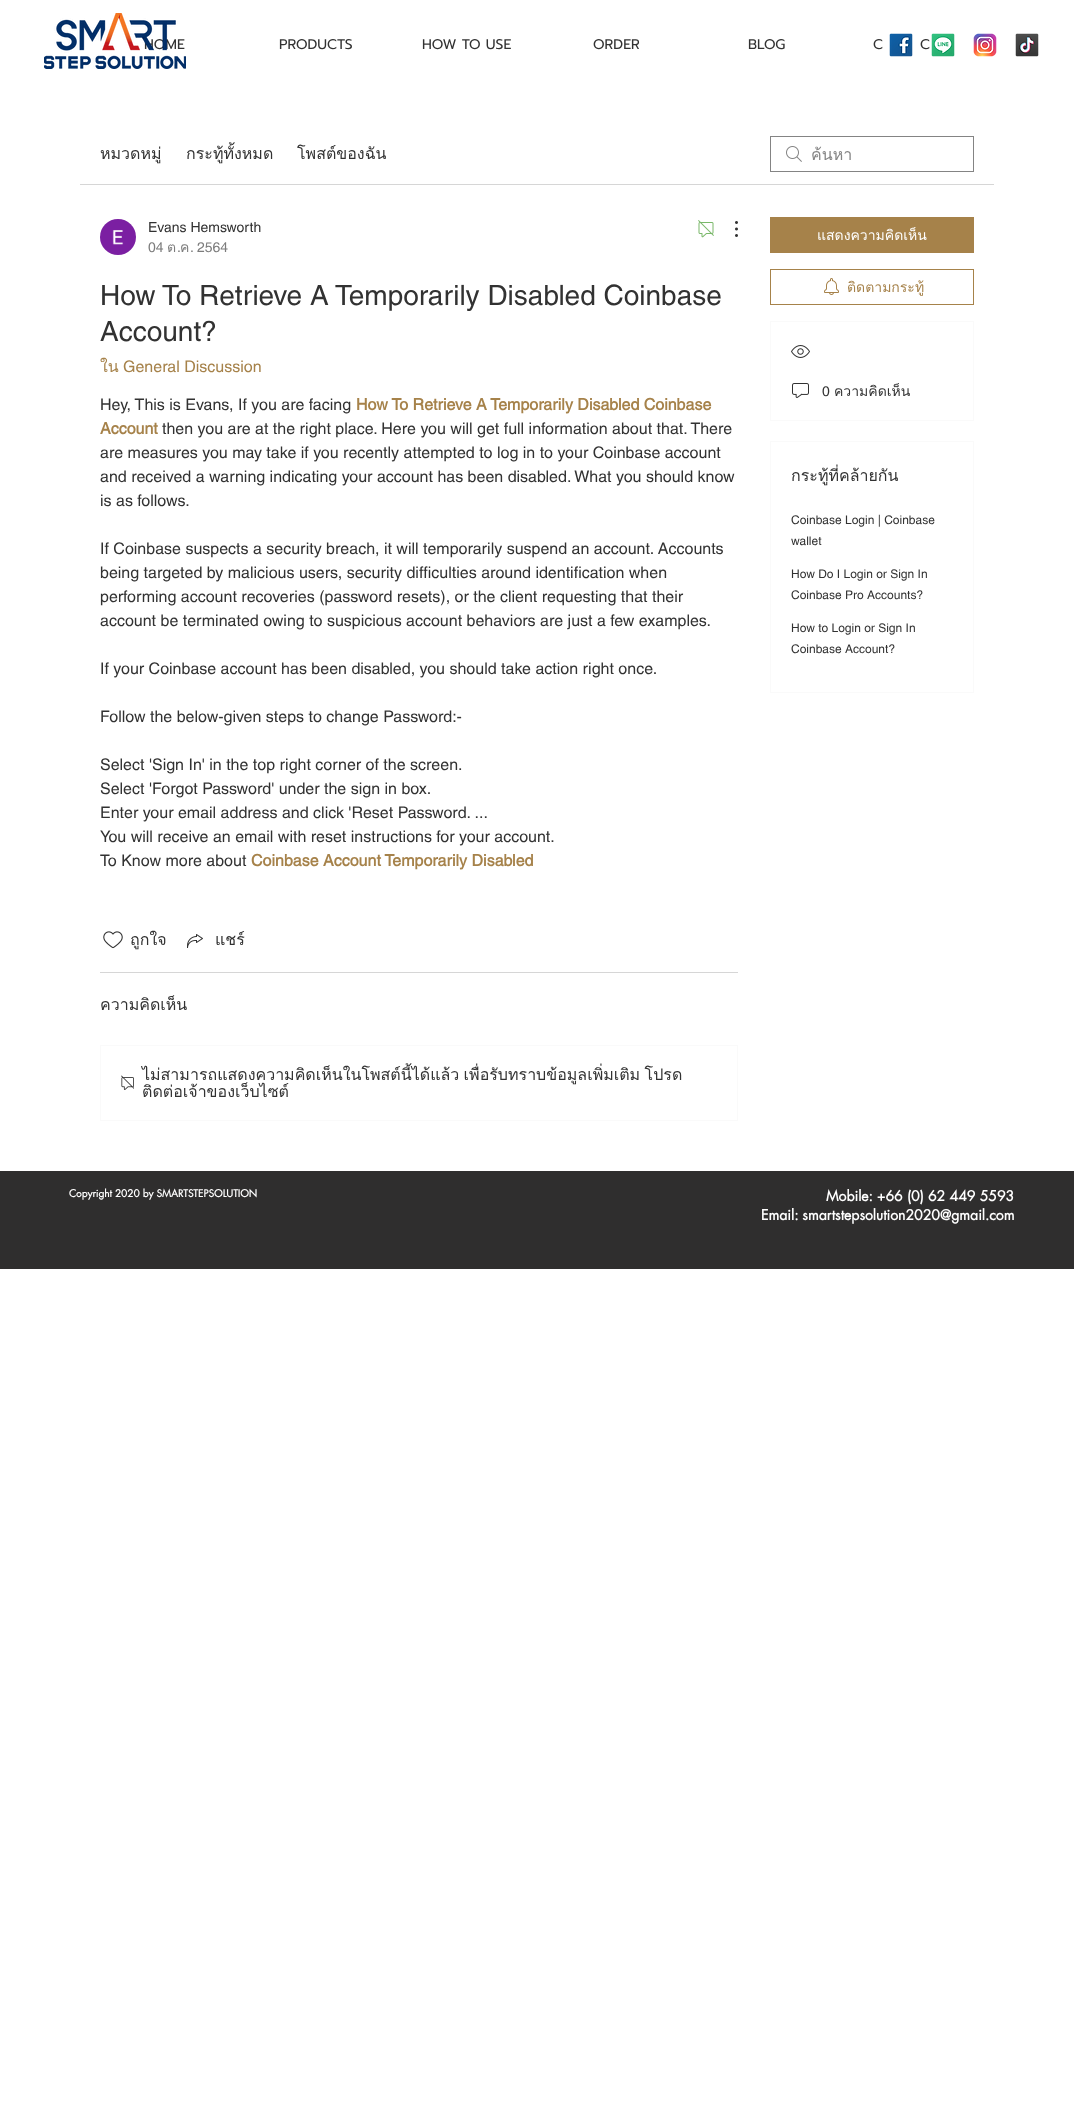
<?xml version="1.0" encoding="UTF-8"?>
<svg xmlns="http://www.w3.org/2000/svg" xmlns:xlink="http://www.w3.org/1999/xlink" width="1074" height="2106">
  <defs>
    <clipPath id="clip1"><rect x="811" y="142" width="150" height="25" /></clipPath>
  </defs>
  <rect width="100%" height="100%" fill="#ffffff" />
  <image x="889" y="33" width="24" height="24" xlink:href="image2.png" />
  <image x="931" y="33" width="24" height="24" xlink:href="image3.png" />
  <image x="973" y="33" width="24" height="24" xlink:href="image4.png" />
  <image x="1015" y="33" width="24" height="24" xlink:href="image5.png" />
  <rect x="80" y="184" width="914" height="1" fill="#d6d6d6" />
  <image x="786" y="146" width="16" height="16" xlink:href="image6.png" />
  <rect x="770.5" y="136.5" width="203" height="35" fill="none" stroke="#848484" />
  <image x="100" y="219" width="36" height="36" xlink:href="image7.png" />
  <image x="698" y="220" width="16" height="18" xlink:href="image8.png" />
  <image x="735" y="221" width="3" height="16" xlink:href="image9.png" />
  <image x="103" y="931" width="20" height="18" xlink:href="image10.png" />
  <image x="187" y="934" width="16" height="14" xlink:href="image11.png" />
  <rect x="100" y="972" width="638" height="1" fill="#d6d6d6" />
  <rect x="100.5" y="1045.5" width="637" height="75" fill="none" stroke="#fafafa" />
  <image x="121" y="1075" width="13" height="15" xlink:href="image12.png" />
  <rect x="770" y="217" width="204" height="36" fill="#a6824a" />
  <rect x="770.5" y="269.5" width="203" height="35" fill="none" stroke="#a6824a" />
  <image x="824" y="278" width="15" height="17" xlink:href="image13.png" />
  <rect x="770.5" y="321.5" width="203" height="99" fill="none" stroke="#fafafa" />
  <image x="791" y="345" width="19" height="13" xlink:href="image14.png" />
  <image x="792" y="383" width="17" height="15" xlink:href="image15.png" />
  <rect x="770.5" y="441.5" width="203" height="251" fill="none" stroke="#fafafa" />
  <rect y="1171" width="1074" height="98" fill="#2f2e2e" />
  <text x="144" y="49" style="font-family: Prompt; font-size: 14px; fill: #323232">HOME</text>
  <image x="44" y="13" width="142" height="56" xlink:href="image1.png" />
  <text x="279" y="49" style="font-family: Prompt; font-size: 14px; fill: #323232">PRODUCTS</text>
  <text x="422" y="49" style="font-family: Prompt; font-size: 14px; fill: #323232">HOW TO USE</text>
  <text x="593" y="49" style="font-family: Prompt; font-size: 14px; fill: #323232">ORDER</text>
  <text x="748" y="49" style="font-family: Prompt; font-size: 14px; fill: #323232">BLOG</text>
  <text x="873" y="49" style="font-family: Prompt; font-size: 14px; fill: #323232">C</text>
  <text x="920" y="49" style="font-family: Prompt; font-size: 14px; fill: #323232">C</text>
  <text x="100" y="159" style="font-family: Loma; font-size: 16px; fill: #323232">หมวดหมู่</text>
  <text x="186" y="159" style="font-family: Loma; font-size: 16px; fill: #323232">กระทู้ทั้งหมด</text>
  <text x="297" y="159" style="font-family: Loma; font-size: 16px; fill: #323232">โพสต์ของฉัน</text>
  <g clip-path="url(#clip1)">
    <text x="811" y="160" style="font-family: Loma; font-size: 16px; fill: #848484">ค้นหา</text>
  </g>
  <text x="148" y="232" style="font-family: helvetica; font-size: 14px; fill: #323232">Evans Hemsworth</text>
  <text x="148" y="252" style="font-family: helvetica; font-size: 14px; fill: #7c7c7c">04</text>
  <text x="167" y="252" style="font-family: Loma; font-size: 14px; fill: #7c7c7c">ต</text>
  <text x="177" y="252" style="font-family: helvetica; font-size: 14px; fill: #7c7c7c">.</text>
  <text x="180" y="252" style="font-family: Loma; font-size: 14px; fill: #7c7c7c">ค</text>
  <text x="190" y="252" style="font-family: helvetica; font-size: 14px; fill: #7c7c7c">. 2564</text>
  <text x="100" y="305" style="font-family: helvetica; font-size: 28px; fill: #323232">How To Retrieve A Temporarily Disabled Coinbase</text>
  <text x="100" y="341" style="font-family: helvetica; font-size: 28px; fill: #323232">Account?</text>
  <text x="100" y="372" style="font-family: Loma; font-size: 16px; fill: #a6824a">ใน</text>
  <text x="123" y="372" style="font-family: helvetica; font-size: 16px; fill: #a6824a">General Discussion</text>
  <text x="100" y="410" style="font-family: helvetica; font-size: 16px; fill: #323232">Hey, This is Evans, If you are facing</text>
  <text x="356" y="410" style="font-family: helvetica; font-size: 16px; font-weight: bold; fill: #a6824a">How To Retrieve A Temporarily Disabled Coinbase</text>
  <text x="100" y="434" style="font-family: helvetica; font-size: 16px; font-weight: bold; fill: #a6824a">Account</text>
  <text x="162" y="434" style="font-family: helvetica; font-size: 16px; fill: #323232">then you are at the right place. Here you will get full information about that. There</text>
  <text x="100" y="458" style="font-family: helvetica; font-size: 16px; fill: #323232">are measures you may take if you recently attempted to log in to your Coinbase account</text>
  <text x="100" y="482" style="font-family: helvetica; font-size: 16px; fill: #323232">and received a warning indicating your account has been disabled. What you should know</text>
  <text x="100" y="506" style="font-family: helvetica; font-size: 16px; fill: #323232">is as follows.</text>
  <text x="100" y="554" style="font-family: helvetica; font-size: 16px; fill: #323232">If Coinbase suspects a security breach, it will temporarily suspend an account. Accounts</text>
  <text x="100" y="578" style="font-family: helvetica; font-size: 16px; fill: #323232">being targeted by malicious users, security difficulties around identification when</text>
  <text x="100" y="602" style="font-family: helvetica; font-size: 16px; fill: #323232">performing account recoveries (password resets), or the client requesting that their</text>
  <text x="100" y="626" style="font-family: helvetica; font-size: 16px; fill: #323232">account be terminated owing to suspicious account behaviors are just a few examples.</text>
  <text x="100" y="674" style="font-family: helvetica; font-size: 16px; fill: #323232">If your Coinbase account has been disabled, you should take action right once.</text>
  <text x="100" y="722" style="font-family: helvetica; font-size: 16px; fill: #323232">Follow the below-given steps to change Password:-</text>
  <text x="100" y="770" style="font-family: helvetica; font-size: 16px; fill: #323232">Select 'Sign In' in the top right corner of the screen.</text>
  <text x="100" y="794" style="font-family: helvetica; font-size: 16px; fill: #323232">Select 'Forgot Password' under the sign in box.</text>
  <text x="100" y="818" style="font-family: helvetica; font-size: 16px; fill: #323232">Enter your email address and click 'Reset Password. ...</text>
  <text x="100" y="842" style="font-family: helvetica; font-size: 16px; fill: #323232">You will receive an email with reset instructions for your account.</text>
  <text x="100" y="866" style="font-family: helvetica; font-size: 16px; fill: #323232">To Know more about</text>
  <text x="251" y="866" style="font-family: helvetica; font-size: 16px; font-weight: bold; fill: #a6824a">Coinbase Account Temporarily Disabled</text>
  <text x="130" y="945" style="font-family: Loma; font-size: 16px; fill: #323232">ถูกใจ</text>
  <text x="215" y="945" style="font-family: Loma; font-size: 16px; fill: #323232">แชร์</text>
  <text x="100" y="1010" style="font-family: Loma; font-size: 16px; fill: #323232">ความคิดเห็น</text>
  <text x="142" y="1080" word-spacing="-1" style="font-family: Loma; font-size: 16px; fill: #323232">ไม่สามารถแสดงความคิดเห็นในโพสต์นี้ได้แล้ว เพื่อรับทราบข้อมูลเพิ่มเติม โปรด</text>
  <text x="142" y="1097" style="font-family: Loma; font-size: 16px; fill: #323232">ติดต่อเจ้าของเว็บไซต์</text>
  <text x="817" y="240" style="font-family: Loma; font-size: 14px; fill: #ffffff">แสดงความคิดเห็น</text>
  <text x="847" y="292" style="font-family: Loma; font-size: 14px; fill: #a6824a">ติดตามกระทู้</text>
  <text x="822" y="396" style="font-family: helvetica; font-size: 14px; fill: #323232">0</text>
  <text x="834" y="396" style="font-family: Loma; font-size: 14px; fill: #323232">ความคิดเห็น</text>
  <text x="791" y="481" style="font-family: Loma; font-size: 16px; fill: #323232">กระทู้ที่คล้ายกัน</text>
  <text x="791" y="524" style="font-family: helvetica; font-size: 12px; fill: #323232">Coinbase Login | Coinbase</text>
  <text x="791" y="545" style="font-family: helvetica; font-size: 12px; fill: #323232">wallet</text>
  <text x="791" y="578" style="font-family: helvetica; font-size: 12px; fill: #323232">How Do I Login or Sign In</text>
  <text x="791" y="599" style="font-family: helvetica; font-size: 12px; fill: #323232">Coinbase Pro Accounts?</text>
  <text x="791" y="632" style="font-family: helvetica; font-size: 12px; fill: #323232">How to Login or Sign In</text>
  <text x="791" y="653" style="font-family: helvetica; font-size: 12px; fill: #323232">Coinbase Account?</text>
  <text x="69" y="1197" style="font-family: futura; font-size: 10px; font-weight: bold; fill: #ffffff">Copyright 2020 by SMARTSTEPSOLUTION</text>
  <text x="826" y="1201" style="font-family: futura; font-size: 14px; font-weight: bold; fill: #ffffff">Mobile: +66 (0) 62 449 5593</text>
  <text x="761" y="1220" style="font-family: futura; font-size: 14px; font-weight: bold; fill: #ffffff">Email: smartstepsolution2020@gmail.com</text>
</svg>
